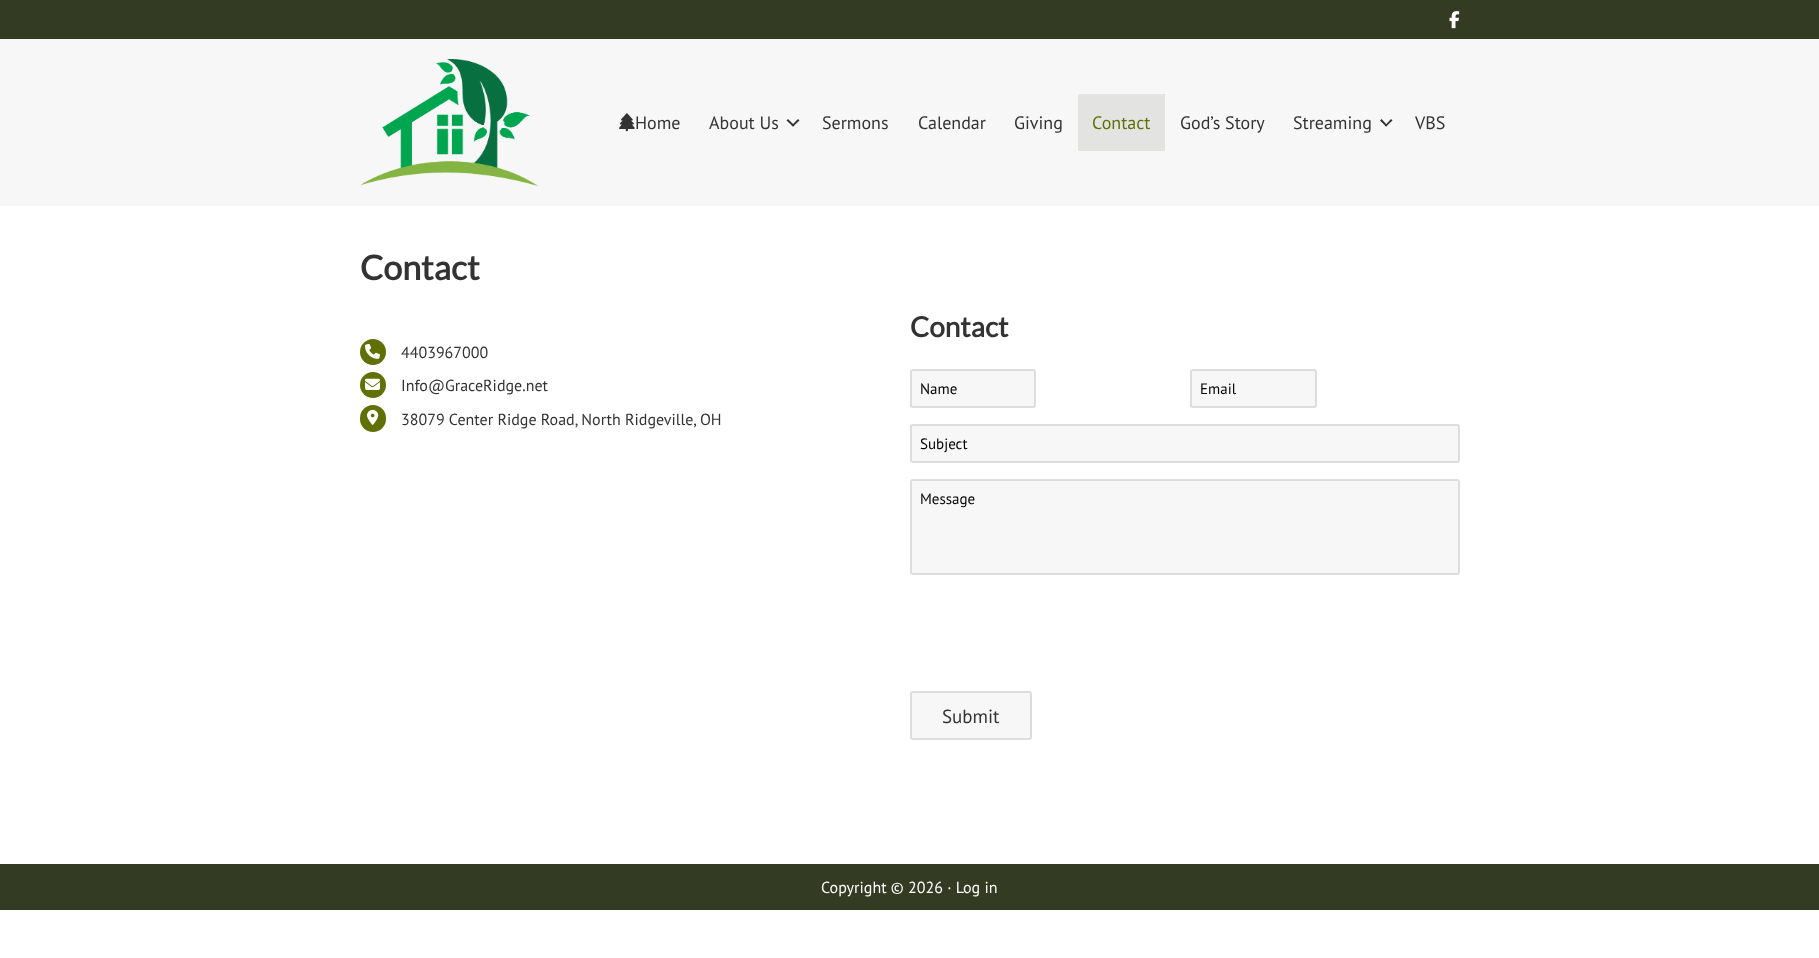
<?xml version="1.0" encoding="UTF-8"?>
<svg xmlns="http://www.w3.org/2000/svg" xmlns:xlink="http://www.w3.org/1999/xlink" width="1819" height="958">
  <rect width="100%" height="100%" fill="#ffffff" />
  <rect width="1819" height="39" fill="#333b22" />
  <image x="1449" y="11" width="11" height="18" xlink:href="image1.png" />
  <rect y="39" width="1819" height="167" fill="#f7f7f7" />
  <image x="360" y="59" width="178" height="127" xlink:href="image2.png" />
  <image x="619" y="113" width="16" height="19" xlink:href="image3.png" />
  <path d="M 798 119 l 1.5 1.5 l -6.5 6 l -1.5 -1 z" fill="#333333" />
  <path d="M 788 119 l 6.5 6.5 l -1.5 1 l -6.5 -6 z" fill="#333333" />
  <rect x="1078" y="94" width="87" height="57" fill="#e3e4e2" />
  <path d="M 1391 119 l 1.5 1.5 l -6.5 6 l -1 -1 z" fill="#333333" />
  <path d="M 1381.5 119 l 6 6.5 l -1.5 1 l -6 -6 z" fill="#333333" />
  <circle cx="373" cy="352" r="13" fill="#607005" />
  <image x="365" y="343" width="15" height="16" xlink:href="image4.png" />
  <circle cx="373" cy="385" r="13" fill="#607005" />
  <image x="365" y="378" width="15" height="12" xlink:href="image5.png" />
  <rect x="360" y="405" width="26" height="27" rx="13" fill="#607005" />
  <image x="367" y="409" width="12" height="16" xlink:href="image6.png" />
  <rect x="910" y="369" width="126" height="39" rx="3" fill="#f7f7f7" />
  <rect x="911" y="370" width="124" height="37" rx="2" fill="none" stroke="#000000" stroke-opacity="0.1" stroke-width="2" />
  <rect x="1190" y="369" width="127" height="39" rx="3" fill="#f7f7f7" />
  <rect x="1191" y="370" width="125" height="37" rx="2" fill="none" stroke="#000000" stroke-opacity="0.1" stroke-width="2" />
  <rect x="910" y="424" width="550" height="39" rx="3" fill="#f7f7f7" />
  <rect x="911" y="425" width="548" height="37" rx="2" fill="none" stroke="#000000" stroke-opacity="0.1" stroke-width="2" />
  <rect x="910" y="479" width="550" height="96" rx="3" fill="#f7f7f7" />
  <rect x="911" y="480" width="548" height="94" rx="2" fill="none" stroke="#000000" stroke-opacity="0.1" stroke-width="2" />
  <rect x="910" y="691" width="122" height="49" rx="3" fill="#f7f7f7" />
  <rect x="911" y="692" width="120" height="47" rx="2" fill="none" stroke="#000000" stroke-opacity="0.1" stroke-width="2" />
  <rect y="864" width="1819" height="46" fill="#333b22" />
  <text x="635" y="129" style="font-family: PT Sans; font-size: 18px; fill: #333333">Home</text>
  <text x="709" y="129" style="font-family: PT Sans; font-size: 18px; fill: #333333">About Us</text>
  <text x="822" y="129" style="font-family: PT Sans; font-size: 18px; fill: #333333">Sermons</text>
  <text x="918" y="129" style="font-family: PT Sans; font-size: 18px; fill: #333333">Calendar</text>
  <text x="1014" y="129" style="font-family: PT Sans; font-size: 18px; fill: #333333">Giving</text>
  <text x="1092" y="129" style="font-family: PT Sans; font-size: 18px; fill: #607005">Contact</text>
  <text x="1180" y="129" style="font-family: PT Sans; font-size: 18px; fill: #333333">God’s Story</text>
  <text x="1293" y="129" style="font-family: PT Sans; font-size: 18px; fill: #333333">Streaming</text>
  <text x="1415" y="129" style="font-family: PT Sans; font-size: 18px; fill: #333333">VBS</text>
  <text x="360" y="280" style="font-family: Lato; font-size: 34px; font-weight: bold; fill: #333333">Contact</text>
  <text x="401" y="358" style="font-family: PT Sans; font-size: 16px; fill: #333333">4403967000</text>
  <text x="401" y="391" style="font-family: PT Sans; font-size: 16px; fill: #333333">Info@GraceRidge.net</text>
  <text x="401" y="425" style="font-family: PT Sans; font-size: 16px; fill: #333333">38079 Center Ridge Road, North Ridgeville, OH</text>
  <text x="910" y="337" style="font-family: Lato; font-size: 28px; font-weight: bold; fill: #333333">Contact</text>
  <text x="920" y="394" style="font-family: PT Sans; font-size: 15px; fill: #000000">Name</text>
  <text x="1200" y="394" style="font-family: PT Sans; font-size: 15px; fill: #000000">Email</text>
  <text x="920" y="449" style="font-family: PT Sans; font-size: 15px; fill: #000000">Subject</text>
  <text x="920" y="504" style="font-family: PT Sans; font-size: 15px; fill: #000000">Message</text>
  <text x="942" y="723" style="font-family: PT Sans; font-size: 19px; fill: #333333">Submit</text>
  <text x="821" y="893" style="font-family: PT Sans; font-size: 16px; fill: #ffffff">Copyright © 2026 · Log in</text>
</svg>
